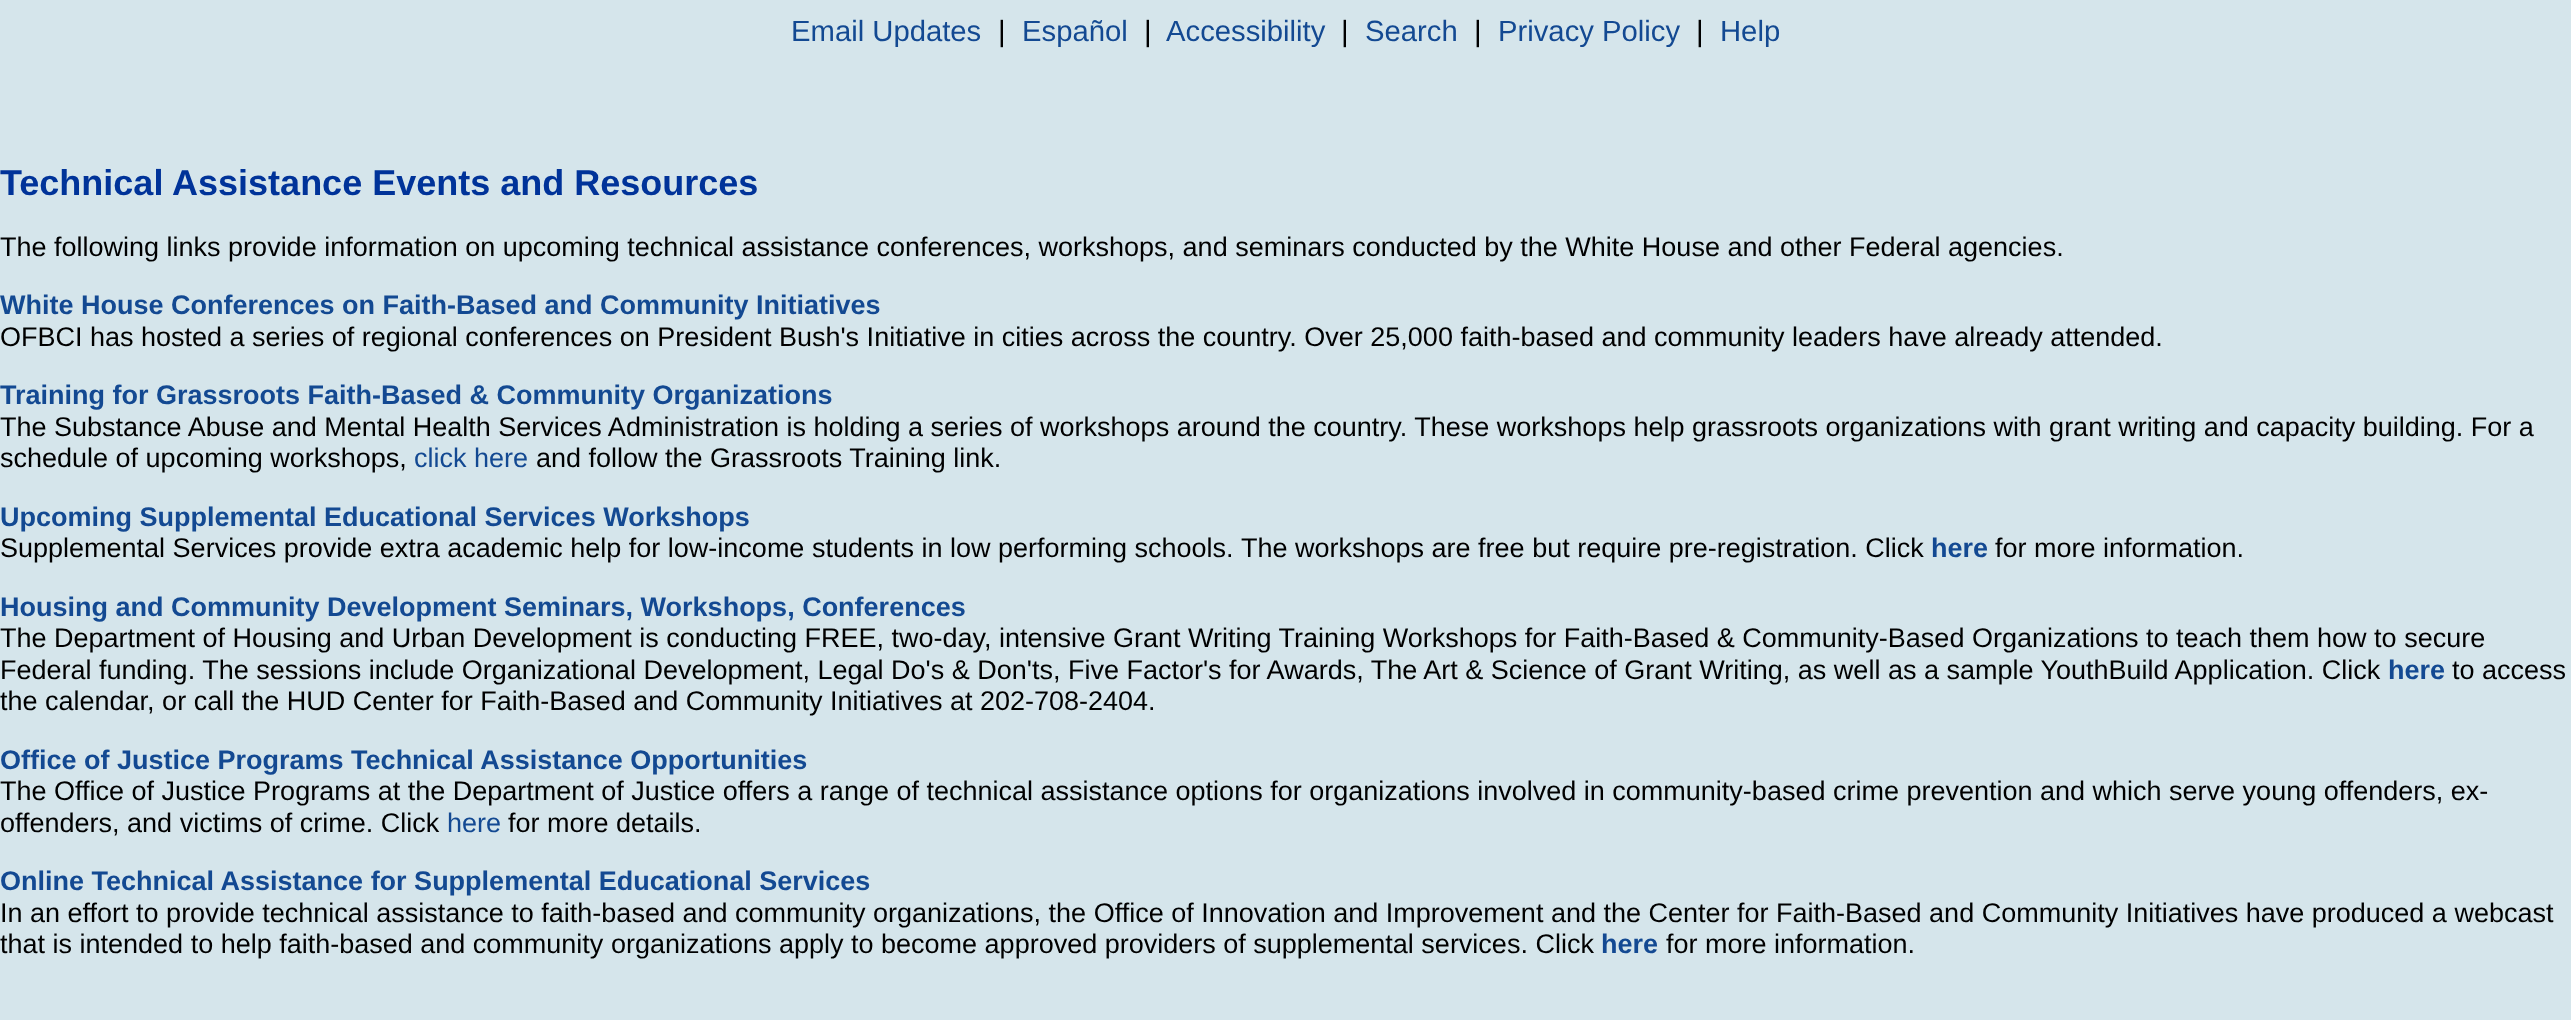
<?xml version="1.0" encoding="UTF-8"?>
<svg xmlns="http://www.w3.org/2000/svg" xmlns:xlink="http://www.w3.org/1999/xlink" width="2571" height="1020">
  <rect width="100%" height="100%" fill="#d5e5eb" />
  <text x="791" y="41" style="font-family: Liberation Sans; font-size: 29.25px; fill: #134992">Email Updates</text>
  <text x="998" y="41" style="font-family: Liberation Sans; font-size: 29.25px; fill: #000000">|</text>
  <text x="1022" y="41" style="font-family: Liberation Sans; font-size: 29.25px; fill: #134992">Español</text>
  <text x="1144" y="41" style="font-family: Liberation Sans; font-size: 29.25px; fill: #000000">|</text>
  <text x="1166" y="41" style="font-family: Liberation Sans; font-size: 29.25px; fill: #134992">Accessibility</text>
  <text x="1341" y="41" style="font-family: Liberation Sans; font-size: 29.25px; fill: #000000">|</text>
  <text x="1365" y="41" style="font-family: Liberation Sans; font-size: 29.25px; fill: #134992">Search</text>
  <text x="1474" y="41" style="font-family: Liberation Sans; font-size: 29.25px; fill: #000000">|</text>
  <text x="1498" y="41" style="font-family: Liberation Sans; font-size: 29.25px; fill: #134992">Privacy Policy</text>
  <text x="1696" y="41" style="font-family: Liberation Sans; font-size: 29.25px; fill: #000000">|</text>
  <text x="1720" y="41" style="font-family: Liberation Sans; font-size: 29.25px; fill: #134992">Help</text>
  <text x="0" y="195" style="font-family: Liberation Sans; font-size: 36px; font-weight: bold; fill: #003399">Technical Assistance Events and Resources</text>
  <text x="0" y="256" style="font-family: Liberation Sans; font-size: 27px; fill: #000000">The following links provide information on upcoming technical assistance conferences, workshops, and seminars conducted by the White House and other Federal agencies.</text>
  <text x="0" y="314" style="font-family: Liberation Sans; font-size: 27px; font-weight: bold; fill: #134992">White House Conferences on Faith-Based and Community Initiatives</text>
  <text x="0" y="346" style="font-family: Liberation Sans; font-size: 27px; fill: #000000">OFBCI has hosted a series of regional conferences on President Bush's Initiative in cities across the country. Over 25,000 faith-based and community leaders have already attended.</text>
  <text x="0" y="404" style="font-family: Liberation Sans; font-size: 27px; font-weight: bold; fill: #134992">Training for Grassroots Faith-Based &amp; Community Organizations</text>
  <text x="0" y="436" style="font-family: Liberation Sans; font-size: 27px; fill: #000000">The Substance Abuse and Mental Health Services Administration is holding a series of workshops around the country. These workshops help grassroots organizations with grant writing and capacity building. For a</text>
  <text x="0" y="467" style="font-family: Liberation Sans; font-size: 27px; fill: #000000">schedule of upcoming workshops,</text>
  <text x="414" y="467" style="font-family: Liberation Sans; font-size: 27px; fill: #134992">click here</text>
  <text x="536" y="467" style="font-family: Liberation Sans; font-size: 27px; fill: #000000">and follow the Grassroots Training link.</text>
  <text x="0" y="526" style="font-family: Liberation Sans; font-size: 27px; font-weight: bold; fill: #134992">Upcoming Supplemental Educational Services Workshops</text>
  <text x="0" y="557" style="font-family: Liberation Sans; font-size: 27px; fill: #000000">Supplemental Services provide extra academic help for low-income students in low performing schools.</text>
  <text x="1241" y="557" style="font-family: Liberation Sans; font-size: 27px; fill: #000000">The workshops are free but require pre-registration. Click</text>
  <text x="1931" y="557" style="font-family: Liberation Sans; font-size: 27px; font-weight: bold; fill: #134992">here</text>
  <text x="1995" y="557" style="font-family: Liberation Sans; font-size: 27px; fill: #000000">for more information.</text>
  <text x="0" y="616" style="font-family: Liberation Sans; font-size: 27px; font-weight: bold; fill: #134992">Housing and Community Development Seminars, Workshops, Conferences</text>
  <text x="0" y="647" style="font-family: Liberation Sans; font-size: 27px; fill: #000000">The Department of Housing and Urban Development is conducting FREE, two-day, intensive Grant Writing Training Workshops for Faith-Based &amp; Community-Based Organizations to teach them how to secure</text>
  <text x="0" y="679" style="font-family: Liberation Sans; font-size: 27px; fill: #000000">Federal funding. The sessions include Organizational Development, Legal Do's &amp; Don'ts, Five Factor's for Awards, The Art &amp; Science of Grant Writing, as well as a sample YouthBuild Application. Click</text>
  <text x="2388" y="679" style="font-family: Liberation Sans; font-size: 27px; font-weight: bold; fill: #134992">here</text>
  <text x="2452" y="679" style="font-family: Liberation Sans; font-size: 27px; fill: #000000">to access</text>
  <text x="0" y="710" style="font-family: Liberation Sans; font-size: 27px; fill: #000000">the calendar, or call the HUD Center for Faith-Based and Community Initiatives at 202-708-2404.</text>
  <text x="0" y="769" style="font-family: Liberation Sans; font-size: 27px; font-weight: bold; fill: #134992">Office of Justice Programs Technical Assistance Opportunities</text>
  <text x="0" y="800" style="font-family: Liberation Sans; font-size: 27px; fill: #000000">The Office of Justice Programs at the Department of Justice offers a range of technical assistance options for organizations involved in community-based crime prevention and which serve young offenders, ex-</text>
  <text x="0" y="832" style="font-family: Liberation Sans; font-size: 27px; fill: #000000">offenders, and victims of crime. Click</text>
  <text x="447" y="832" style="font-family: Liberation Sans; font-size: 27px; fill: #134992">here</text>
  <text x="508" y="832" style="font-family: Liberation Sans; font-size: 27px; fill: #000000">for more details.</text>
  <text x="0" y="890" style="font-family: Liberation Sans; font-size: 27px; font-weight: bold; fill: #134992">Online Technical Assistance for Supplemental Educational Services</text>
  <text x="0" y="922" style="font-family: Liberation Sans; font-size: 27px; fill: #000000">In an effort to provide technical assistance to faith-based and community organizations, the Office of Innovation and Improvement and the Center for Faith-Based and Community Initiatives have produced a webcast</text>
  <text x="0" y="953" style="font-family: Liberation Sans; font-size: 27px; fill: #000000">that is intended to help faith-based and community organizations apply to become approved providers of supplemental services. Click</text>
  <text x="1601" y="953" style="font-family: Liberation Sans; font-size: 27px; font-weight: bold; fill: #134992">here</text>
  <text x="1666" y="953" style="font-family: Liberation Sans; font-size: 27px; fill: #000000">for more information.</text>
</svg>
